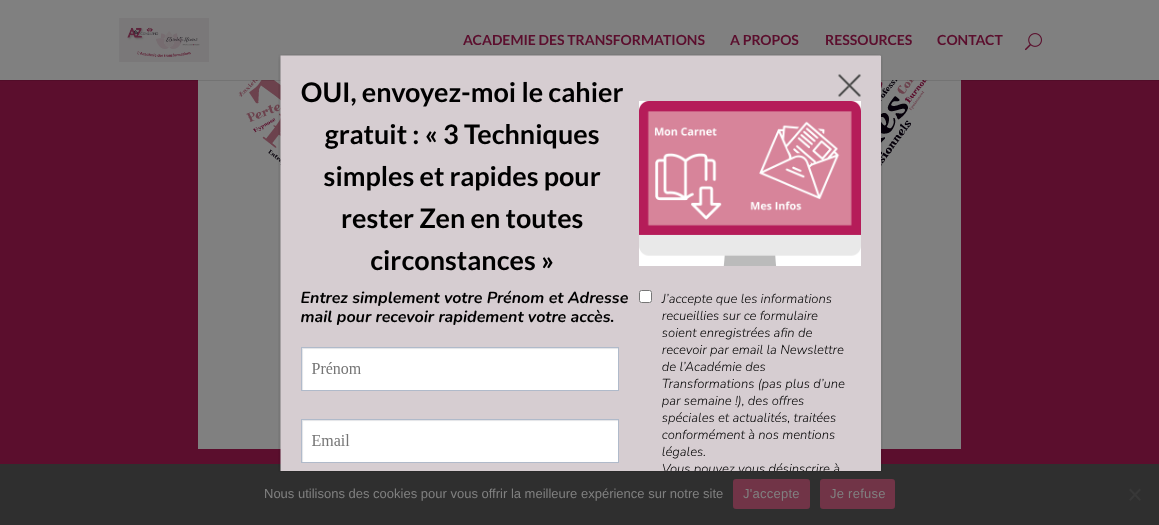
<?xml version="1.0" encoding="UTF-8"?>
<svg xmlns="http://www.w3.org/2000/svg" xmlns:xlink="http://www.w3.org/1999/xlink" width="1159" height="525">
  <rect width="100%" height="100%" fill="#5b0e2d" />
  <image x="198" y="80" width="763" height="369" xlink:href="image3.png" />
  <rect y="80" width="1159" height="1" fill="#000000" fill-opacity="0.1" />
  <rect width="1159" height="80" fill="#808080" />
  <image x="119" y="18" width="90" height="44" xlink:href="image1.png" />
  <image x="1025" y="33" width="17" height="18" xlink:href="image2.png" />
  <rect y="464" width="1159" height="61" fill="#2f2f2f" />
  <image x="278" y="54" width="605" height="418" xlink:href="image4.png" />
  <rect x="733" y="479" width="77" height="30" rx="3" fill="#713447" />
  <rect x="820" y="479" width="75" height="30" rx="3" fill="#713447" />
  <path d="M 1139.5 488.5 l 1.5 1.5 l -10.5 11 l -1.5 -1.5 z" fill="#383838" />
  <path d="M 1129 490 l 1.5 -1.5 l 10.5 11 l -1.5 1.5 z" fill="#383838" />
  <text x="463" y="45" style="font-family: Lato; font-size: 14px; font-weight: bold; fill: #5b0e2d">ACADEMIE DES TRANSFORMATIONS</text>
  <text x="730" y="45" style="font-family: Lato; font-size: 14px; font-weight: bold; fill: #5b0e2d">A PROPOS</text>
  <text x="825" y="45" style="font-family: Lato; font-size: 14px; font-weight: bold; fill: #5b0e2d">RESSOURCES</text>
  <text x="937" y="45" style="font-family: Lato; font-size: 14px; font-weight: bold; fill: #5b0e2d">CONTACT</text>
  <text x="264" y="498" style="font-family: Liberation Sans; font-size: 13px; fill: #808080">Nous utilisons des cookies pour vous offrir la meilleure expérience sur notre site</text>
  <text x="743" y="498" style="font-family: Liberation Sans; font-size: 13px; letter-spacing: 0.25px; fill: #808080">J'accepte</text>
  <text x="830" y="498" style="font-family: Liberation Sans; font-size: 13px; letter-spacing: 0.25px; fill: #808080">Je refuse</text>
</svg>
